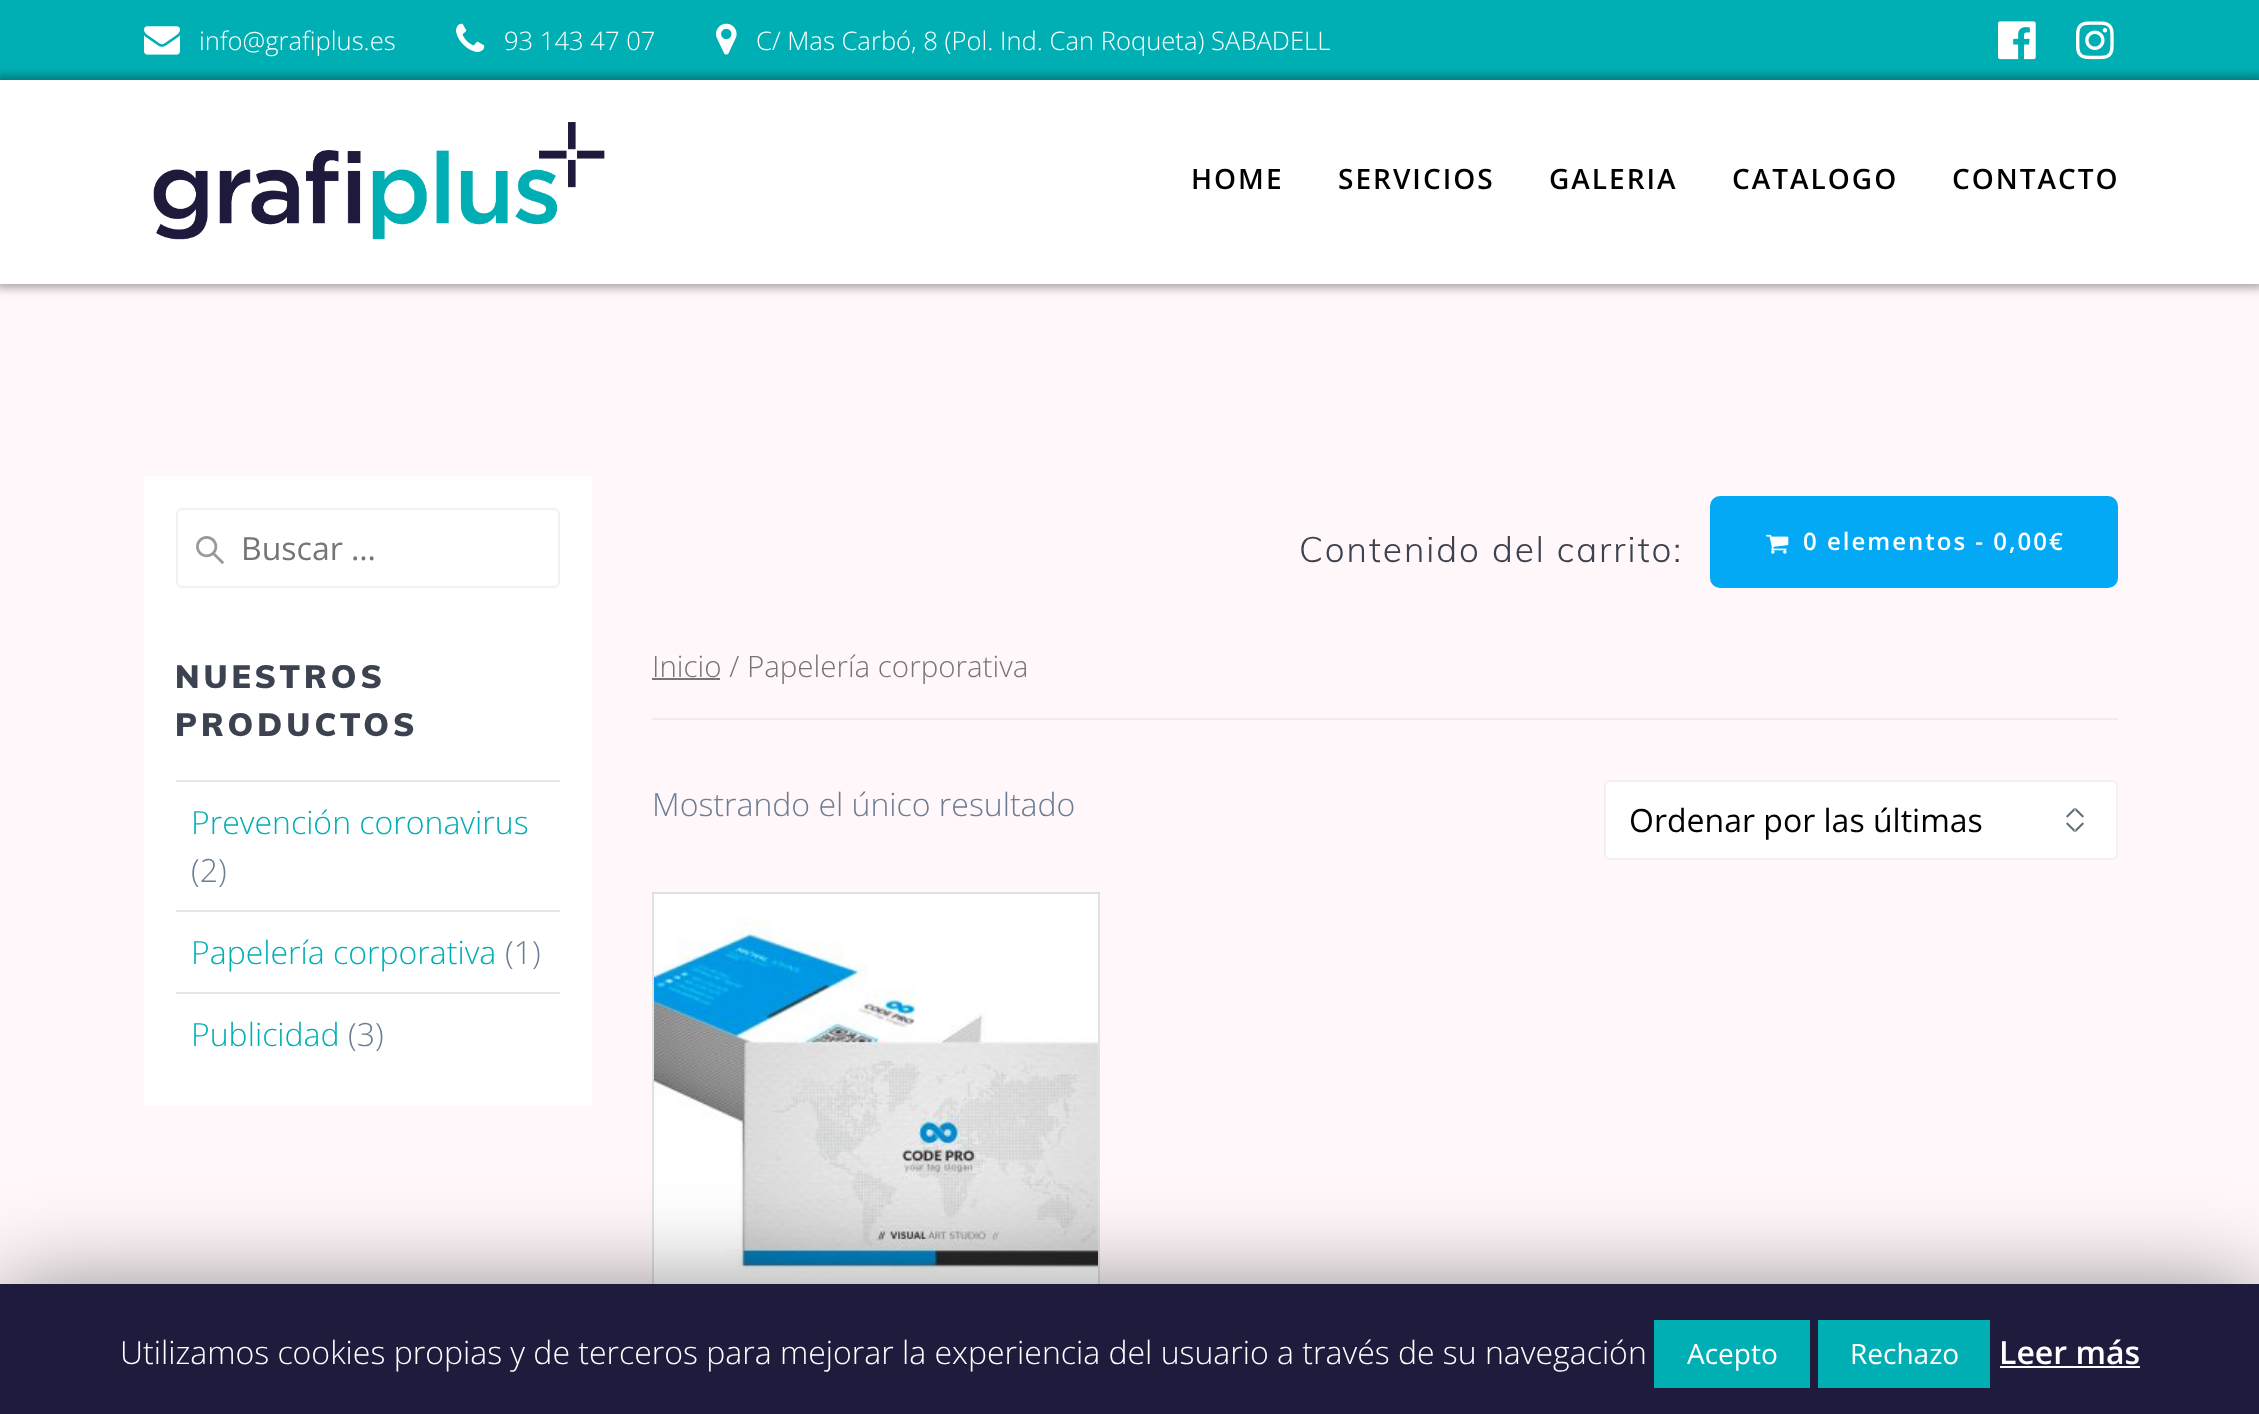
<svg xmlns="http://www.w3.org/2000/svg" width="2259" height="1414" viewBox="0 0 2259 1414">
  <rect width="100%" height="100%" fill="rgb(0,175,180)"/>
  <image x="144" y="26" width="36" height="29" href="pic1.png"/>
  <text x="199" y="50" font-family="Open Sans" font-size="25.6" font-weight="300" fill="rgb(255,255,255)">info@grafiplus.es</text>
  <image x="456" y="23" width="29" height="29" href="pic2.png"/>
  <text x="504" y="50" font-family="Open Sans" font-size="25.6" font-weight="300" fill="rgb(255,255,255)">93 143 47 07</text>
  <image x="716" y="23" width="21" height="32" href="pic3.png"/>
  <text x="756" y="50" font-family="Open Sans" font-size="25.6" font-weight="300" fill="rgb(255,255,255)">C/ Mas Carbó, 8 (Pol. Ind. Can Roqueta) SABADELL</text>
  <image x="1998" y="21" width="38" height="39" href="pic4.png"/>
  <image x="2076" y="21" width="38" height="39" href="pic5.png"/>
  <rect x="0" y="284" width="2259" height="1000" fill="rgb(255,247,249)"/>
  <rect x="-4" y="76" width="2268" height="212" fill="rgba(0,0,0,0.33)" filter="blur(5px)"/>
  <rect x="0" y="80" width="2259" height="204" fill="rgb(255,255,255)"/>
  <image x="153" y="122" width="452" height="118" href="pic6.png"/>
  <g font-family="Open Sans" font-size="28" font-weight="600" letter-spacing="2" fill="rgb(0,0,0)">
    <text x="1191" y="189">HOME</text>
    <text x="1338" y="189">SERVICIOS</text>
    <text x="1549" y="189">GALERIA</text>
    <text x="1732" y="189">CATALOGO</text>
    <text x="1952" y="189">CONTACTO</text>
  </g>
  <rect x="144" y="476" width="448" height="630" fill="rgb(255,255,255)"/>
  <image x="196" y="536" width="28" height="28" href="pic7.png"/>
  <rect x="177" y="509" width="382" height="78" rx="5" fill="none" stroke="rgb(241,241,241)" stroke-width="2"/>
  <text x="241" y="560" font-family="Open Sans" font-size="32" fill="rgb(117,117,117)">Buscar …</text>
  <g font-family="Muli" font-size="32" font-weight="900" letter-spacing="4" fill="rgb(60,66,79)">
    <text>
      <tspan x="175" y="688">NUESTROS</tspan>
      <tspan x="175" y="736">PRODUCTOS</tspan>
    </text>
  </g>
  <rect x="176" y="780" width="384" height="2" fill="rgb(230,230,230)"/>
  <text x="191" y="834" font-family="Open Sans" font-size="32" font-weight="300" fill="rgb(0,175,180)">Prevención coronavirus</text>
  <text x="191" y="882" font-family="Open Sans" font-size="32" font-weight="300" fill="rgb(107,124,147)">(2)</text>
  <rect x="176" y="910" width="384" height="2" fill="rgb(230,230,230)"/>
  <text x="191" y="964" font-family="Open Sans" font-size="32" font-weight="300" fill="rgb(0,175,180)">Papelería corporativa</text>
  <text x="505" y="964" font-family="Open Sans" font-size="32" font-weight="300" fill="rgb(107,124,147)">(1)</text>
  <rect x="176" y="992" width="384" height="2" fill="rgb(230,230,230)"/>
  <text x="191" y="1046" font-family="Open Sans" font-size="32" font-weight="300" fill="rgb(0,175,180)">Publicidad</text>
  <text x="348" y="1046" font-family="Open Sans" font-size="32" font-weight="300" fill="rgb(107,124,147)">(3)</text>
  <rect x="652" y="718" width="1466" height="2" fill="rgb(237,237,237)"/>
  <text x="1299" y="562" font-family="Muli" font-size="35.25" font-weight="300" letter-spacing="2" fill="rgb(60,66,79)">Contenido del carrito:</text>
  <rect x="1712" y="498" width="404" height="88" rx="8" fill="rgb(3,169,244)" stroke="rgb(3,169,244)" stroke-width="4"/>
  <image x="1766" y="534" width="23" height="20" href="pic8.png"/>
  <text x="1803" y="550" font-family="Open Sans" font-size="24" font-weight="600" letter-spacing="2" fill="rgb(255,255,255)">0 elementos - 0,00€</text>
  <rect x="652" y="678" width="68" height="2" fill="rgb(118,118,118)"/>
  <text x="652" y="677" font-family="Open Sans" font-size="29.5" font-weight="300" fill="rgb(117,117,117)">Inicio / Papelería corporativa</text>
  <text x="652" y="816" font-family="Open Sans" font-size="32" font-weight="300" fill="rgb(107,124,147)">Mostrando el único resultado</text>
  <rect x="1604" y="780" width="514" height="80" rx="6" fill="rgb(255,255,255)"/>
  <image x="2066" y="808" width="18" height="24" href="pic9.png"/>
  <rect x="1605" y="781" width="512" height="78" rx="5" fill="none" stroke="rgb(241,241,241)" stroke-width="2"/>
  <text x="1629" y="832" font-family="Open Sans" font-size="32" fill="rgb(0,0,0)">Ordenar por las últimas</text>
  <rect x="654" y="894" width="444" height="390" fill="rgb(255,255,255)"/>
  <rect x="653" y="893" width="446" height="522" fill="none" stroke="rgb(224,225,225)" stroke-width="2"/>
  <image x="654" y="917" width="444" height="357" href="pic10.png"/>
  <rect x="0" y="1294" width="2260" height="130" fill="rgba(0,0,0,0.5)" filter="blur(50px)"/>
  <rect x="0" y="1284" width="2259" height="130" fill="rgb(30,27,60)"/>
  <text x="120" y="1364" font-family="Open Sans" font-size="32" font-weight="300" fill="rgb(255,255,255)">Utilizamos cookies propias y de terceros para mejorar la experiencia del usuario a través de su navegación</text>
  <rect x="1654" y="1320" width="156" height="68" fill="rgb(0,175,180)"/>
  <text x="1687" y="1364" font-family="Open Sans" font-size="28" fill="rgb(255,255,255)">Acepto</text>
  <rect x="1818" y="1320" width="172" height="68" fill="rgb(0,175,180)"/>
  <text x="1850" y="1364" font-family="Open Sans" font-size="28" fill="rgb(255,255,255)">Rechazo</text>
  <text x="1999" y="1364" font-family="Open Sans" font-size="32" font-weight="600" fill="rgb(255,255,255)">Leer más</text>
  <rect x="2000" y="1366" width="140" height="2" fill="rgb(255,255,255)"/>
</svg>
